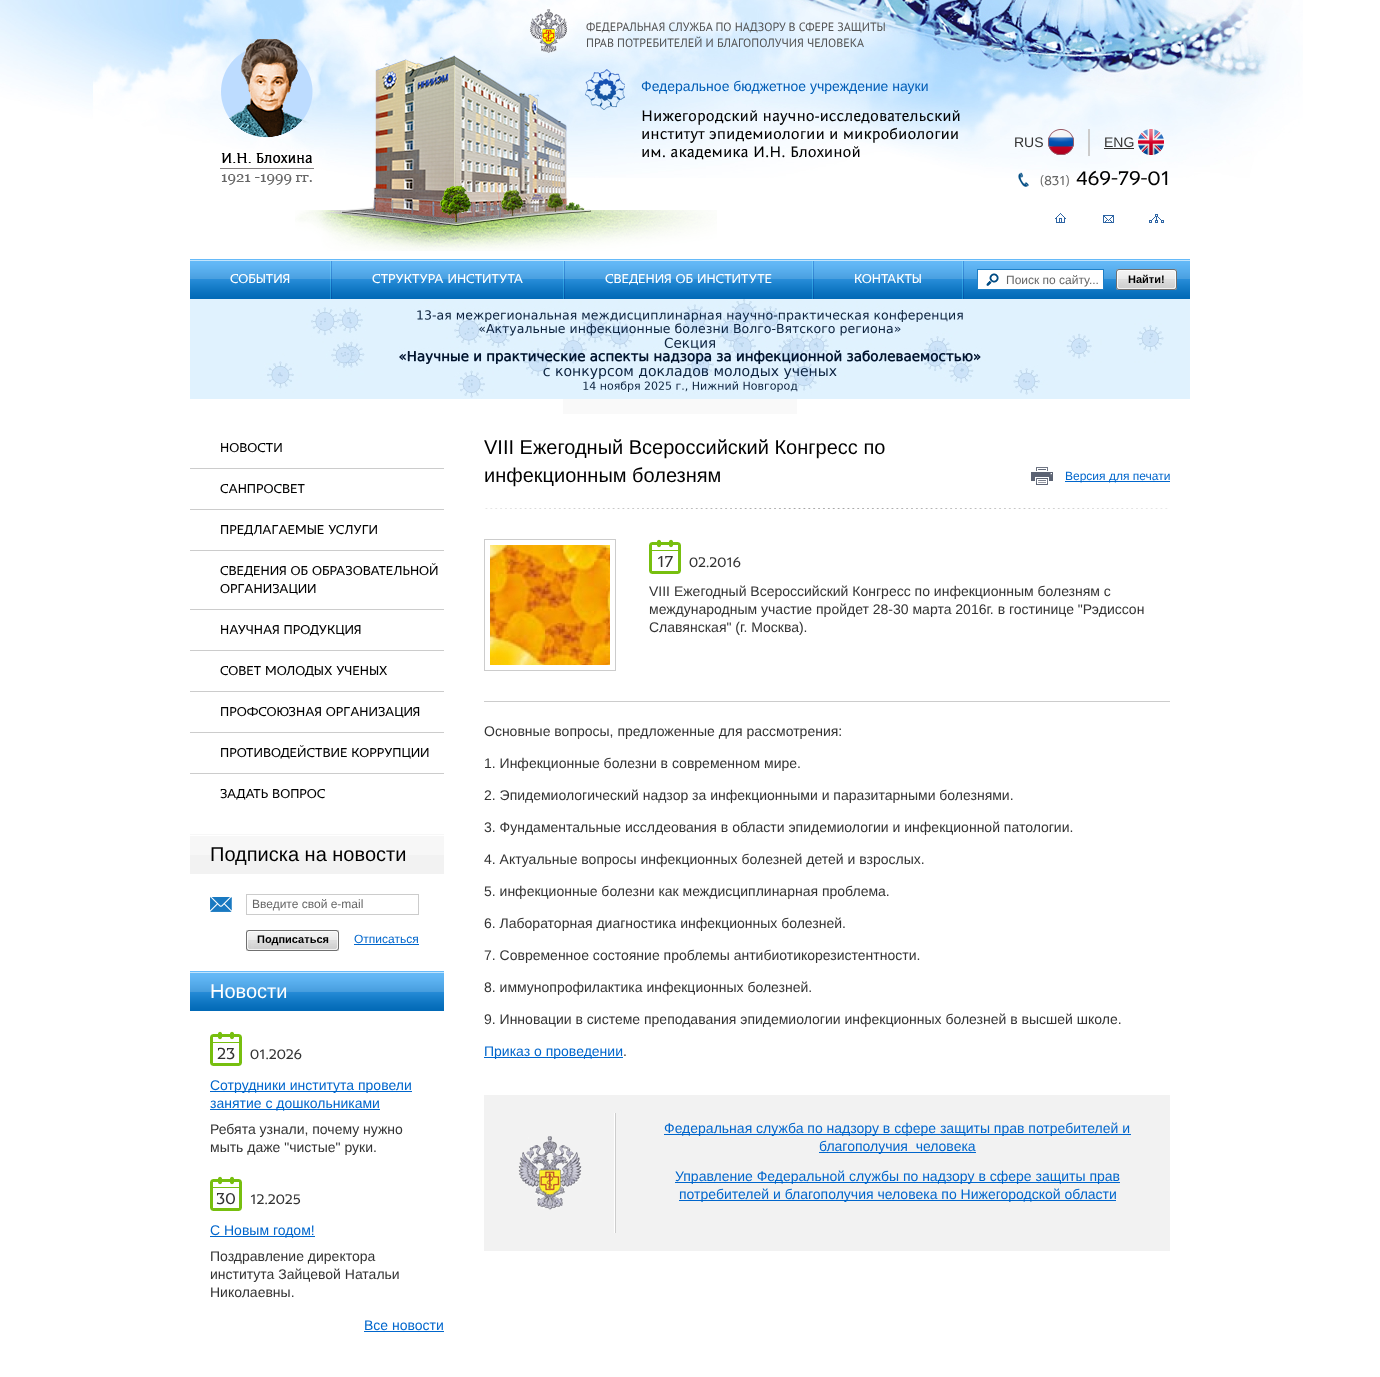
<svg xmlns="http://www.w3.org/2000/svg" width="1380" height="1377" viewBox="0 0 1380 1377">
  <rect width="100%" height="100%" fill="rgb(255,255,255)"/>
  <image x="0" y="0" width="1303" height="178" href="pic1.png"/>
  <image x="295" y="55" width="422" height="196" href="pic2.png"/>
  <image x="530" y="9" width="37" height="44" href="pic3.png"/>
  <g font-family="PT Sans" font-size="12" fill="rgb(81,81,81)">
    <text>
      <tspan x="586" y="31">ФЕДЕРАЛЬНАЯ СЛУЖБА ПО НАДЗОРУ В СФЕРЕ ЗАЩИТЫ</tspan>
      <tspan x="586" y="47">ПРАВ ПОТРЕБИТЕЛЕЙ И БЛАГОПОЛУЧИЯ ЧЕЛОВЕКА</tspan>
    </text>
  </g>
  <image x="220" y="39" width="94" height="146" href="pic4.png"/>
  <image x="585" y="69" width="40" height="41" href="pic5.png"/>
  <text x="641" y="91" font-family="Liberation Sans" font-size="14" fill="rgb(0,93,183)">Федеральное бюджетное учреждение науки</text>
  <g font-family="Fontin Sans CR" font-size="16" fill="rgb(0,0,0)">
    <text>
      <tspan x="641" y="121">Нижегородский научно-исследовательский</tspan>
      <tspan x="641" y="139">институт эпидемиологии и микробиологии</tspan>
      <tspan x="641" y="157">им. академика И.Н. Блохиной</tspan>
    </text>
  </g>
  <image x="1048" y="129" width="26" height="26" href="pic6.png"/>
  <text x="1014" y="147" font-family="Liberation Sans" font-size="14" fill="rgb(51,51,51)">RUS</text>
  <rect x="1088" y="129" width="2" height="27" fill="rgb(204,204,204)"/>
  <image x="1138" y="129" width="26" height="26" href="pic7.png"/>
  <text x="1104" y="147" font-family="Liberation Sans" font-size="14" fill="rgb(51,51,51)">ENG</text>
  <rect x="1104" y="148" width="30" height="1" fill="rgb(51,51,51)"/>
  <image x="1018" y="172" width="11" height="15" href="pic8.png"/>
  <text x="1040" y="185" font-family="'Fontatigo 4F'" font-size="13" fill="rgb(102,102,102)">(831)</text>
  <text x="1076" y="185" font-family="'Fontatigo 4F'" font-size="20" fill="rgb(0,0,0)">469-79-01</text>
  <image x="1055" y="213" width="11" height="10" href="pic9.png"/>
  <image x="1103" y="215" width="11" height="8" href="pic10.png"/>
  <image x="1149" y="214" width="15" height="9" href="pic11.png"/>
  <image x="190" y="259" width="140" height="40" href="pic12.png"/>
  <text x="230" y="283" font-family="'Fontatigo 4F'" font-size="13" fill="rgb(255,255,255)">СОБЫТИЯ</text>
  <image x="330" y="259" width="2" height="40" href="pic13.png"/>
  <image x="332" y="259" width="231" height="40" href="pic14.png"/>
  <text x="372" y="283" font-family="'Fontatigo 4F'" font-size="13" fill="rgb(255,255,255)">СТРУКТУРА ИНСТИТУТА</text>
  <image x="563" y="259" width="2" height="40" href="pic13.png"/>
  <image x="565" y="259" width="247" height="40" href="pic15.png"/>
  <text x="605" y="283" font-family="'Fontatigo 4F'" font-size="13" fill="rgb(255,255,255)">СВЕДЕНИЯ ОБ ИНСТИТУТЕ</text>
  <image x="812" y="259" width="2" height="40" href="pic13.png"/>
  <image x="814" y="259" width="148" height="40" href="pic16.png"/>
  <text x="854" y="283" font-family="'Fontatigo 4F'" font-size="13" fill="rgb(255,255,255)">КОНТАКТЫ</text>
  <image x="962" y="259" width="2" height="40" href="pic13.png"/>
  <image x="964" y="259" width="226" height="40" href="pic17.png"/>
  <rect x="978" y="270" width="125" height="19" fill="rgb(255,255,255)"/>
  <image x="986" y="273" width="13" height="13" href="pic18.png"/>
  <rect x="977.5" y="269.5" width="126" height="20" fill="none" stroke="rgb(29,127,199)"/>
  <text x="1006" y="284" font-family="Liberation Sans" font-size="12" fill="rgb(102,102,102)">Поиск по сайту...</text>
  <image x="1116" y="269" width="61" height="21" href="pic19.png"/>
  <text x="1128" y="283" font-family="Liberation Sans" font-size="11" font-weight="bold" fill="rgb(0,0,0)">Найти!</text>
  <image x="190" y="299" width="1000" height="100" href="pic20.png"/>
  <rect x="563" y="399" width="234" height="15" fill="rgb(249,249,249)"/>
  <text x="220" y="452" font-family="'Fontatigo 4F'" font-size="13" fill="rgb(0,0,0)">НОВОСТИ</text>
  <rect x="190" y="468" width="254" height="1" fill="rgb(204,204,204)"/>
  <text x="220" y="493" font-family="'Fontatigo 4F'" font-size="13" fill="rgb(0,0,0)">САНПРОСВЕТ</text>
  <rect x="190" y="509" width="254" height="1" fill="rgb(204,204,204)"/>
  <text x="220" y="534" font-family="'Fontatigo 4F'" font-size="13" fill="rgb(0,0,0)">ПРЕДЛАГАЕМЫЕ УСЛУГИ</text>
  <rect x="190" y="550" width="254" height="1" fill="rgb(204,204,204)"/>
  <g font-family="'Fontatigo 4F'" font-size="13" fill="rgb(0,0,0)">
    <text>
      <tspan x="220" y="575">СВЕДЕНИЯ ОБ ОБРАЗОВАТЕЛЬНОЙ</tspan>
      <tspan x="220" y="593">ОРГАНИЗАЦИИ</tspan>
    </text>
  </g>
  <rect x="190" y="609" width="254" height="1" fill="rgb(204,204,204)"/>
  <text x="220" y="634" font-family="'Fontatigo 4F'" font-size="13" fill="rgb(0,0,0)">НАУЧНАЯ ПРОДУКЦИЯ</text>
  <rect x="190" y="650" width="254" height="1" fill="rgb(204,204,204)"/>
  <text x="220" y="675" font-family="'Fontatigo 4F'" font-size="13" fill="rgb(0,0,0)">СОВЕТ МОЛОДЫХ УЧЕНЫХ</text>
  <rect x="190" y="691" width="254" height="1" fill="rgb(204,204,204)"/>
  <text x="220" y="716" font-family="'Fontatigo 4F'" font-size="13" fill="rgb(0,0,0)">ПРОФСОЮЗНАЯ ОРГАНИЗАЦИЯ</text>
  <rect x="190" y="732" width="254" height="1" fill="rgb(204,204,204)"/>
  <text x="220" y="757" font-family="'Fontatigo 4F'" font-size="13" fill="rgb(0,0,0)">ПРОТИВОДЕЙСТВИЕ КОРРУПЦИИ</text>
  <rect x="190" y="773" width="254" height="1" fill="rgb(204,204,204)"/>
  <text x="220" y="798" font-family="'Fontatigo 4F'" font-size="13" fill="rgb(0,0,0)">ЗАДАТЬ ВОПРОС</text>
  <image x="190" y="834" width="254" height="40" href="pic21.png"/>
  <text x="210" y="861" font-family="Liberation Sans" font-size="20" fill="rgb(0,0,0)">Подписка на новости</text>
  <image x="210" y="897" width="22" height="15" href="pic22.png"/>
  <rect x="246.5" y="894.5" width="172" height="20" fill="none" stroke="rgb(204,204,204)"/>
  <text x="252" y="908" font-family="Liberation Sans" font-size="12" fill="rgb(102,102,102)">Введите свой e-mail</text>
  <image x="246" y="930" width="93" height="21" href="pic23.png"/>
  <text x="257" y="943" font-family="Liberation Sans" font-size="11" font-weight="bold" fill="rgb(0,0,0)">Подписаться</text>
  <text x="354" y="943" font-family="Liberation Sans" font-size="12" fill="rgb(0,102,204)">Отписаться</text>
  <rect x="354" y="944" width="65" height="1" fill="rgb(0,102,204)"/>
  <image x="190" y="971" width="254" height="40" href="pic24.png"/>
  <text x="210" y="998" font-family="Liberation Sans" font-size="20" fill="rgb(255,255,255)">Новости</text>
  <image x="210" y="1031" width="32" height="35" href="pic25.png"/>
  <text x="217" y="1059" font-family="'Fontatigo 4F'" font-size="16" fill="rgb(51,51,51)">23</text>
  <text x="250" y="1059" font-family="'Fontatigo 4F'" font-size="14" fill="rgb(51,51,51)">01.2026</text>
  <rect x="210" y="1091" width="202" height="1" fill="rgb(0,102,204)"/>
  <text x="210" y="1090" font-family="Liberation Sans" font-size="14" fill="rgb(0,102,204)">Сотрудники института провели</text>
  <rect x="210" y="1109" width="170" height="1" fill="rgb(0,102,204)"/>
  <text x="210" y="1108" font-family="Liberation Sans" font-size="14" fill="rgb(0,102,204)">занятие с дошкольниками</text>
  <g font-family="Liberation Sans" font-size="14" fill="rgb(51,51,51)">
    <text>
      <tspan x="210" y="1134">Ребята узнали, почему нужно</tspan>
      <tspan x="210" y="1152">мыть даже "чистые" руки.</tspan>
    </text>
  </g>
  <image x="210" y="1176" width="32" height="35" href="pic25.png"/>
  <text x="216" y="1204" font-family="'Fontatigo 4F'" font-size="16" fill="rgb(51,51,51)">30</text>
  <text x="250" y="1204" font-family="'Fontatigo 4F'" font-size="14" fill="rgb(51,51,51)">12.2025</text>
  <rect x="210" y="1236" width="105" height="1" fill="rgb(0,102,204)"/>
  <text x="210" y="1235" font-family="Liberation Sans" font-size="14" fill="rgb(0,102,204)">С Новым годом!</text>
  <g font-family="Liberation Sans" font-size="14" fill="rgb(51,51,51)">
    <text>
      <tspan x="210" y="1261">Поздравление директора</tspan>
      <tspan x="210" y="1279">института Зайцевой Натальи</tspan>
      <tspan x="210" y="1297">Николаевны.</tspan>
    </text>
  </g>
  <text x="364" y="1330" font-family="Liberation Sans" font-size="14" fill="rgb(0,102,204)">Все новости</text>
  <rect x="364" y="1331" width="80" height="1" fill="rgb(0,102,204)"/>
  <image x="485" y="508" width="683" height="1" href="pic26.png"/>
  <g font-family="Liberation Sans" font-size="20" fill="rgb(0,0,0)">
    <text>
      <tspan x="484" y="454">VIII Ежегодный Всероссийский Конгресс по</tspan>
      <tspan x="484" y="482">инфекционным болезням</tspan>
    </text>
  </g>
  <image x="1031" y="467" width="22" height="18" href="pic27.png"/>
  <rect x="1065" y="481" width="105" height="1" fill="rgb(0,102,204)"/>
  <text x="1065" y="480" font-family="Liberation Sans" font-size="12" fill="rgb(0,102,204)">Версия для печати</text>
  <rect x="484.5" y="539.5" width="131" height="131" fill="none" stroke="rgb(204,204,204)"/>
  <image x="490" y="545" width="120" height="120" href="pic28.png"/>
  <image x="649" y="539" width="32" height="35" href="pic25.png"/>
  <text x="657" y="567" font-family="'Fontatigo 4F'" font-size="16" fill="rgb(51,51,51)">17</text>
  <text x="689" y="567" font-family="'Fontatigo 4F'" font-size="14" fill="rgb(51,51,51)">02.2016</text>
  <g font-family="Liberation Sans" font-size="14" fill="rgb(51,51,51)">
    <text>
      <tspan x="649" y="596">VIII Ежегодный Всероссийский Конгресс по инфекционным болезням с</tspan>
      <tspan x="649" y="614">международным участие пройдет 28-30 марта 2016г. в гостинице "Рэдиссон</tspan>
      <tspan x="649" y="632">Славянская" (г. Москва).</tspan>
    </text>
  </g>
  <rect x="484" y="701" width="686" height="1" fill="rgb(204,204,204)"/>
  <g font-family="Liberation Sans" font-size="14" fill="rgb(51,51,51)">
    <text x="484" y="736">Основные вопросы, предложенные для рассмотрения:</text>
    <text x="484" y="768">1. Инфекционные болезни в современном мире.</text>
    <text x="484" y="800">2. Эпидемиологический надзор за инфекционными и паразитарными болезнями.</text>
    <text x="484" y="832">3. Фундаментальные исслдеования в области эпидемиологии и инфекционной патологии.</text>
    <text x="484" y="864">4. Актуальные вопросы инфекционных болезней детей и взрослых.</text>
    <text x="484" y="896">5. инфекционные болезни как междисциплинарная проблема.</text>
    <text x="484" y="928">6. Лабораторная диагностика инфекционных болезней.</text>
    <text x="484" y="960">7. Современное состояние проблемы антибиотикорезистентности.</text>
    <text x="484" y="992">8. иммунопрофилактика инфекционных болезней.</text>
    <text x="484" y="1024">9. Инновации в системе преподавания эпидемиологии инфекционных болезней в высшей школе.</text>
  </g>
  <rect x="484" y="1057" width="139" height="1" fill="rgb(0,102,204)"/>
  <text x="484" y="1056" font-family="Liberation Sans" font-size="14" fill="rgb(0,102,204)">Приказ о проведении</text>
  <text x="623" y="1056" font-family="Liberation Sans" font-size="14" fill="rgb(51,51,51)">.</text>
  <rect x="484" y="1095" width="686" height="156" fill="rgb(242,242,242)"/>
  <image x="518" y="1136" width="64" height="74" href="pic29.png"/>
  <image x="614" y="1113" width="2" height="120" href="pic30.png"/>
  <rect x="664" y="1134" width="467" height="1" fill="rgb(0,102,204)"/>
  <text x="664" y="1133" font-family="Liberation Sans" font-size="14" fill="rgb(0,102,204)">Федеральная служба по надзору в сфере защиты прав потребителей и</text>
  <rect x="819" y="1152" width="157" height="1" fill="rgb(0,102,204)"/>
  <text x="819" y="1151" font-family="Liberation Sans" font-size="14" fill="rgb(0,102,204)" xml:space="preserve">благополучия  человека</text>
  <rect x="675" y="1182" width="445" height="1" fill="rgb(0,102,204)"/>
  <text x="675" y="1181" font-family="Liberation Sans" font-size="14" fill="rgb(0,102,204)">Управление Федеральной службы по надзору в сфере защиты прав</text>
  <rect x="679" y="1200" width="437" height="1" fill="rgb(0,102,204)"/>
  <text x="679" y="1199" font-family="Liberation Sans" font-size="14" fill="rgb(0,102,204)">потребителей и благополучия человека по Нижегородской области</text>
</svg>
